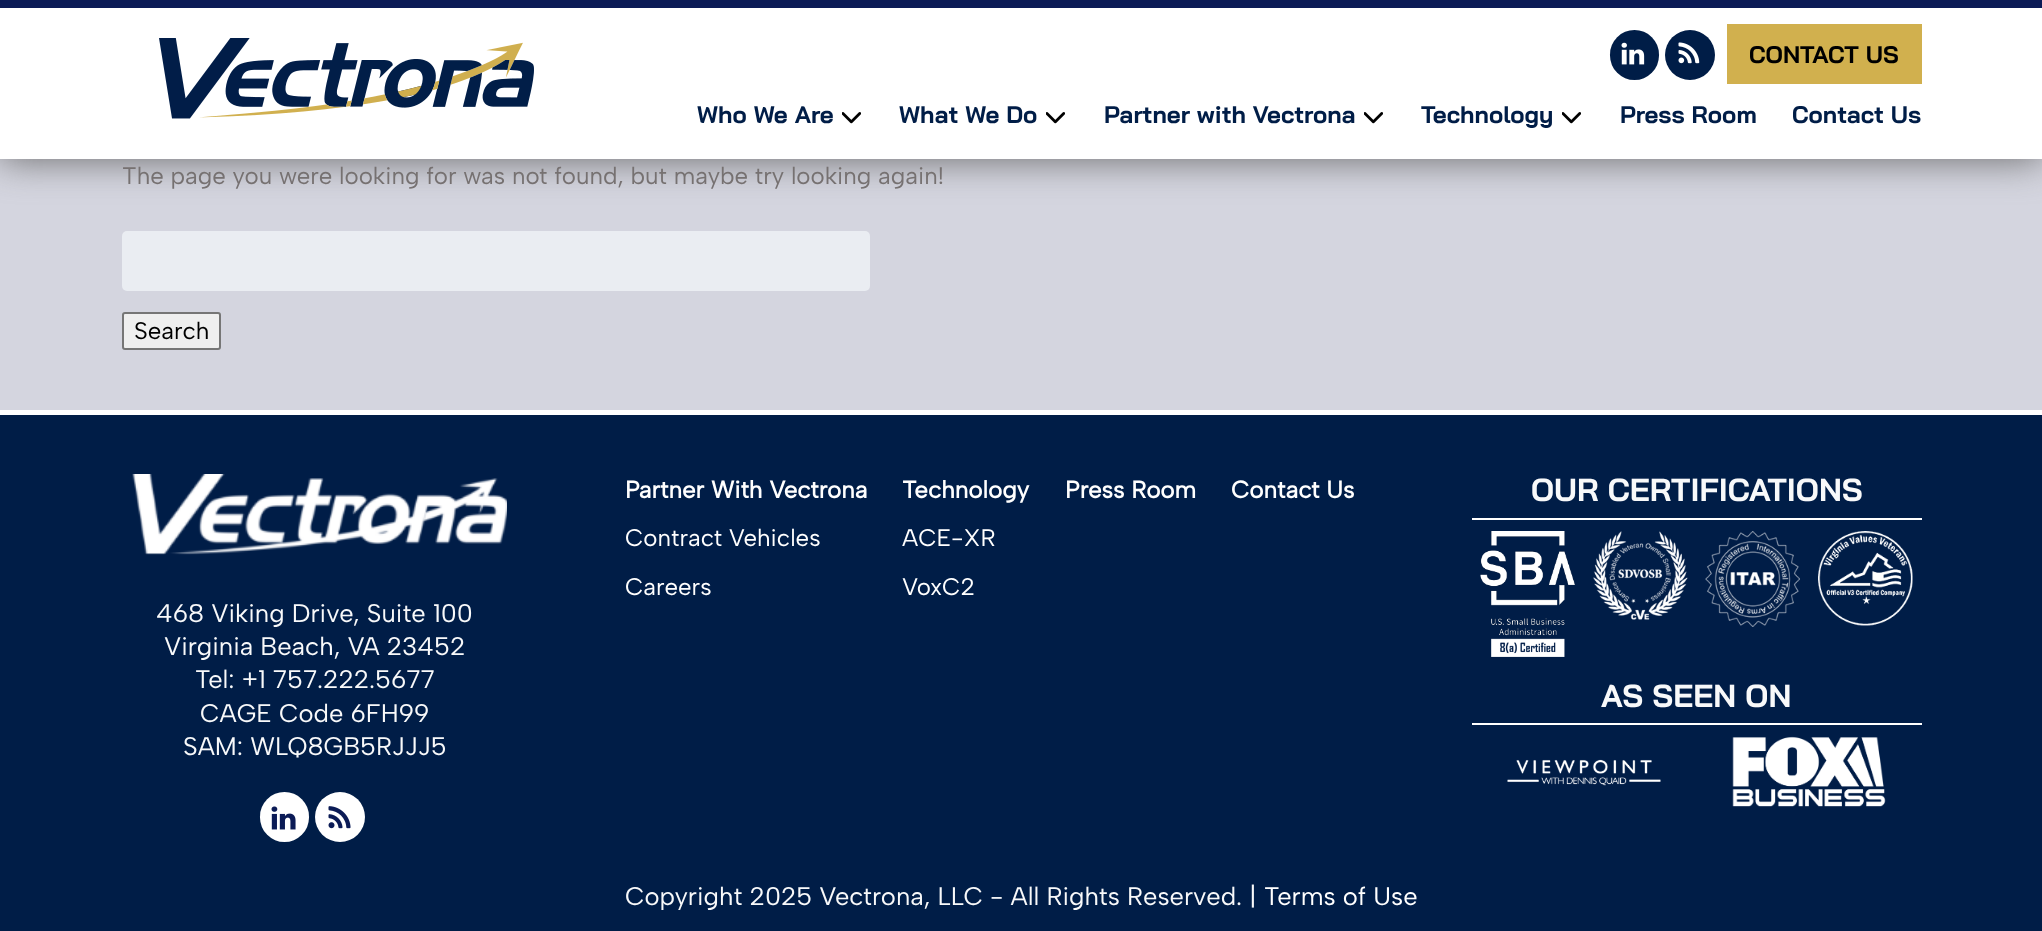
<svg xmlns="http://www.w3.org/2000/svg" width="2042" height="931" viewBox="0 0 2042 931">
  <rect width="100%" height="100%" fill="rgb(212,213,223)"/>
  <rect x="0" y="0" width="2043" height="159" fill="rgb(102,102,102)" filter="blur(19px)"/>
  <rect x="0" y="8" width="2042" height="151" fill="rgb(255,255,255)"/>
  <rect x="0" y="0" width="2042" height="8" fill="rgb(11,27,86)"/>
  <image x="159" y="38" width="375" height="81" href="pic1.png"/>
  <rect x="1610" y="30" width="49" height="50" rx="24.5" fill="rgb(0,29,71)"/>
  <image x="1621" y="42" width="24" height="23" href="pic2.png"/>
  <circle cx="1690" cy="55" r="25" fill="rgb(0,29,71)"/>
  <image x="1678" y="42" width="22" height="22" href="pic3.png"/>
  <rect x="1727" y="24" width="195" height="60" fill="rgb(209,176,78)"/>
  <text x="1749" y="63" font-family="Bai Jamjuree" font-size="24" font-weight="bold" fill="rgb(0,0,0)">CONTACT US</text>
  <text x="697" y="123" font-family="Bai Jamjuree" font-size="24" font-weight="bold" fill="rgb(0,29,71)">Who We Are</text>
  <image x="842" y="112" width="19" height="12" href="pic4.png"/>
  <text x="899" y="123" font-family="Bai Jamjuree" font-size="24" font-weight="bold" fill="rgb(0,29,71)">What We Do</text>
  <image x="1046" y="112" width="19" height="12" href="pic4.png"/>
  <text x="1104" y="123" font-family="Bai Jamjuree" font-size="24" font-weight="bold" fill="rgb(0,29,71)">Partner with Vectrona</text>
  <image x="1364" y="112" width="19" height="12" href="pic4.png"/>
  <text x="1421" y="123" font-family="Bai Jamjuree" font-size="24" font-weight="bold" fill="rgb(0,29,71)">Technology</text>
  <image x="1562" y="112" width="19" height="12" href="pic4.png"/>
  <g font-family="Bai Jamjuree" font-size="24" font-weight="bold" fill="rgb(0,29,71)">
    <text x="1620" y="123">Press Room</text>
    <text x="1792" y="123">Contact Us</text>
  </g>
  <text x="122" y="184" font-family="Albert Sans" font-size="24" fill="rgb(118,113,113)">The page you were looking for was not found, but maybe try looking again!</text>
  <rect x="122" y="231" width="748" height="60" rx="5" fill="rgb(234,237,242)"/>
  <rect x="123" y="313" width="97" height="36" rx="2" fill="rgb(239,239,239)" stroke="rgb(118,118,118)" stroke-width="2"/>
  <text x="134" y="339" font-family="Albert Sans" font-size="24" fill="rgb(0,0,0)">Search</text>
  <rect x="0" y="415" width="2042" height="516" fill="rgb(0,29,71)"/>
  <rect x="0" y="410" width="2042" height="5" fill="rgb(255,255,255)"/>
  <text x="625" y="498" font-family="Albert Sans" font-size="24" font-weight="bold" fill="rgb(255,255,255)">Partner With Vectrona</text>
  <g font-family="Albert Sans" font-size="24" fill="rgb(255,255,255)">
    <text x="625" y="546">Contract Vehicles</text>
    <text x="625" y="595">Careers</text>
  </g>
  <text x="902" y="498" font-family="Albert Sans" font-size="24" font-weight="bold" fill="rgb(255,255,255)">Technology</text>
  <g font-family="Albert Sans" font-size="24" fill="rgb(255,255,255)">
    <text x="902" y="546">ACE-XR</text>
    <text x="902" y="595">VoxC2</text>
  </g>
  <g font-family="Albert Sans" font-size="24" font-weight="bold" fill="rgb(255,255,255)">
    <text x="1065" y="498">Press Room</text>
    <text x="1231" y="498">Contact Us</text>
  </g>
  <rect x="1472" y="518" width="450" height="2" fill="rgb(255,255,255)"/>
  <text x="1531" y="501" font-family="Bai Jamjuree" font-size="31.9" font-weight="bold" fill="rgb(248,249,250)">OUR CERTIFICATIONS</text>
  <image x="1480" y="531" width="95" height="126" href="pic5.png"/>
  <image x="1593" y="531" width="95" height="89" href="pic6.png"/>
  <image x="1705" y="531" width="95" height="96" href="pic7.png"/>
  <image x="1818" y="531" width="95" height="95" href="pic8.png"/>
  <rect x="1472" y="723" width="450" height="2" fill="rgb(255,255,255)"/>
  <text x="1601" y="707" font-family="Bai Jamjuree" font-size="31.9" font-weight="bold" fill="rgb(248,249,250)">AS SEEN ON</text>
  <image x="1507" y="759" width="154" height="27" href="pic9.png"/>
  <image x="1732" y="736" width="154" height="71" href="pic10.png"/>
  <image x="132" y="474" width="375" height="81" href="pic11.png"/>
  <g font-family="Albert Sans" font-size="25.5" fill="rgb(248,249,250)">
    <text x="156" y="622">468 Viking Drive, Suite 100</text>
    <text x="164" y="655">Virginia Beach, VA 23452</text>
    <text x="195" y="688">Tel: +1 757.222.5677</text>
    <text x="200" y="722">CAGE Code 6FH99</text>
    <text x="183" y="755">SAM: WLQ8GB5RJJJ5</text>
  </g>
  <rect x="260" y="792" width="49" height="50" rx="24.5" fill="rgb(255,255,255)"/>
  <image x="271" y="806" width="25" height="24" href="pic12.png"/>
  <circle cx="340" cy="817" r="25" fill="rgb(255,255,255)"/>
  <image x="328" y="806" width="23" height="23" href="pic13.png"/>
  <text x="625" y="905" font-family="Albert Sans" font-size="25.5" fill="rgb(248,249,250)">Copyright 2025 Vectrona, LLC - All Rights Reserved. |</text>
  <text x="1264" y="905" font-family="Albert Sans" font-size="25.5" fill="rgb(255,255,255)">Terms of Use</text>
</svg>
